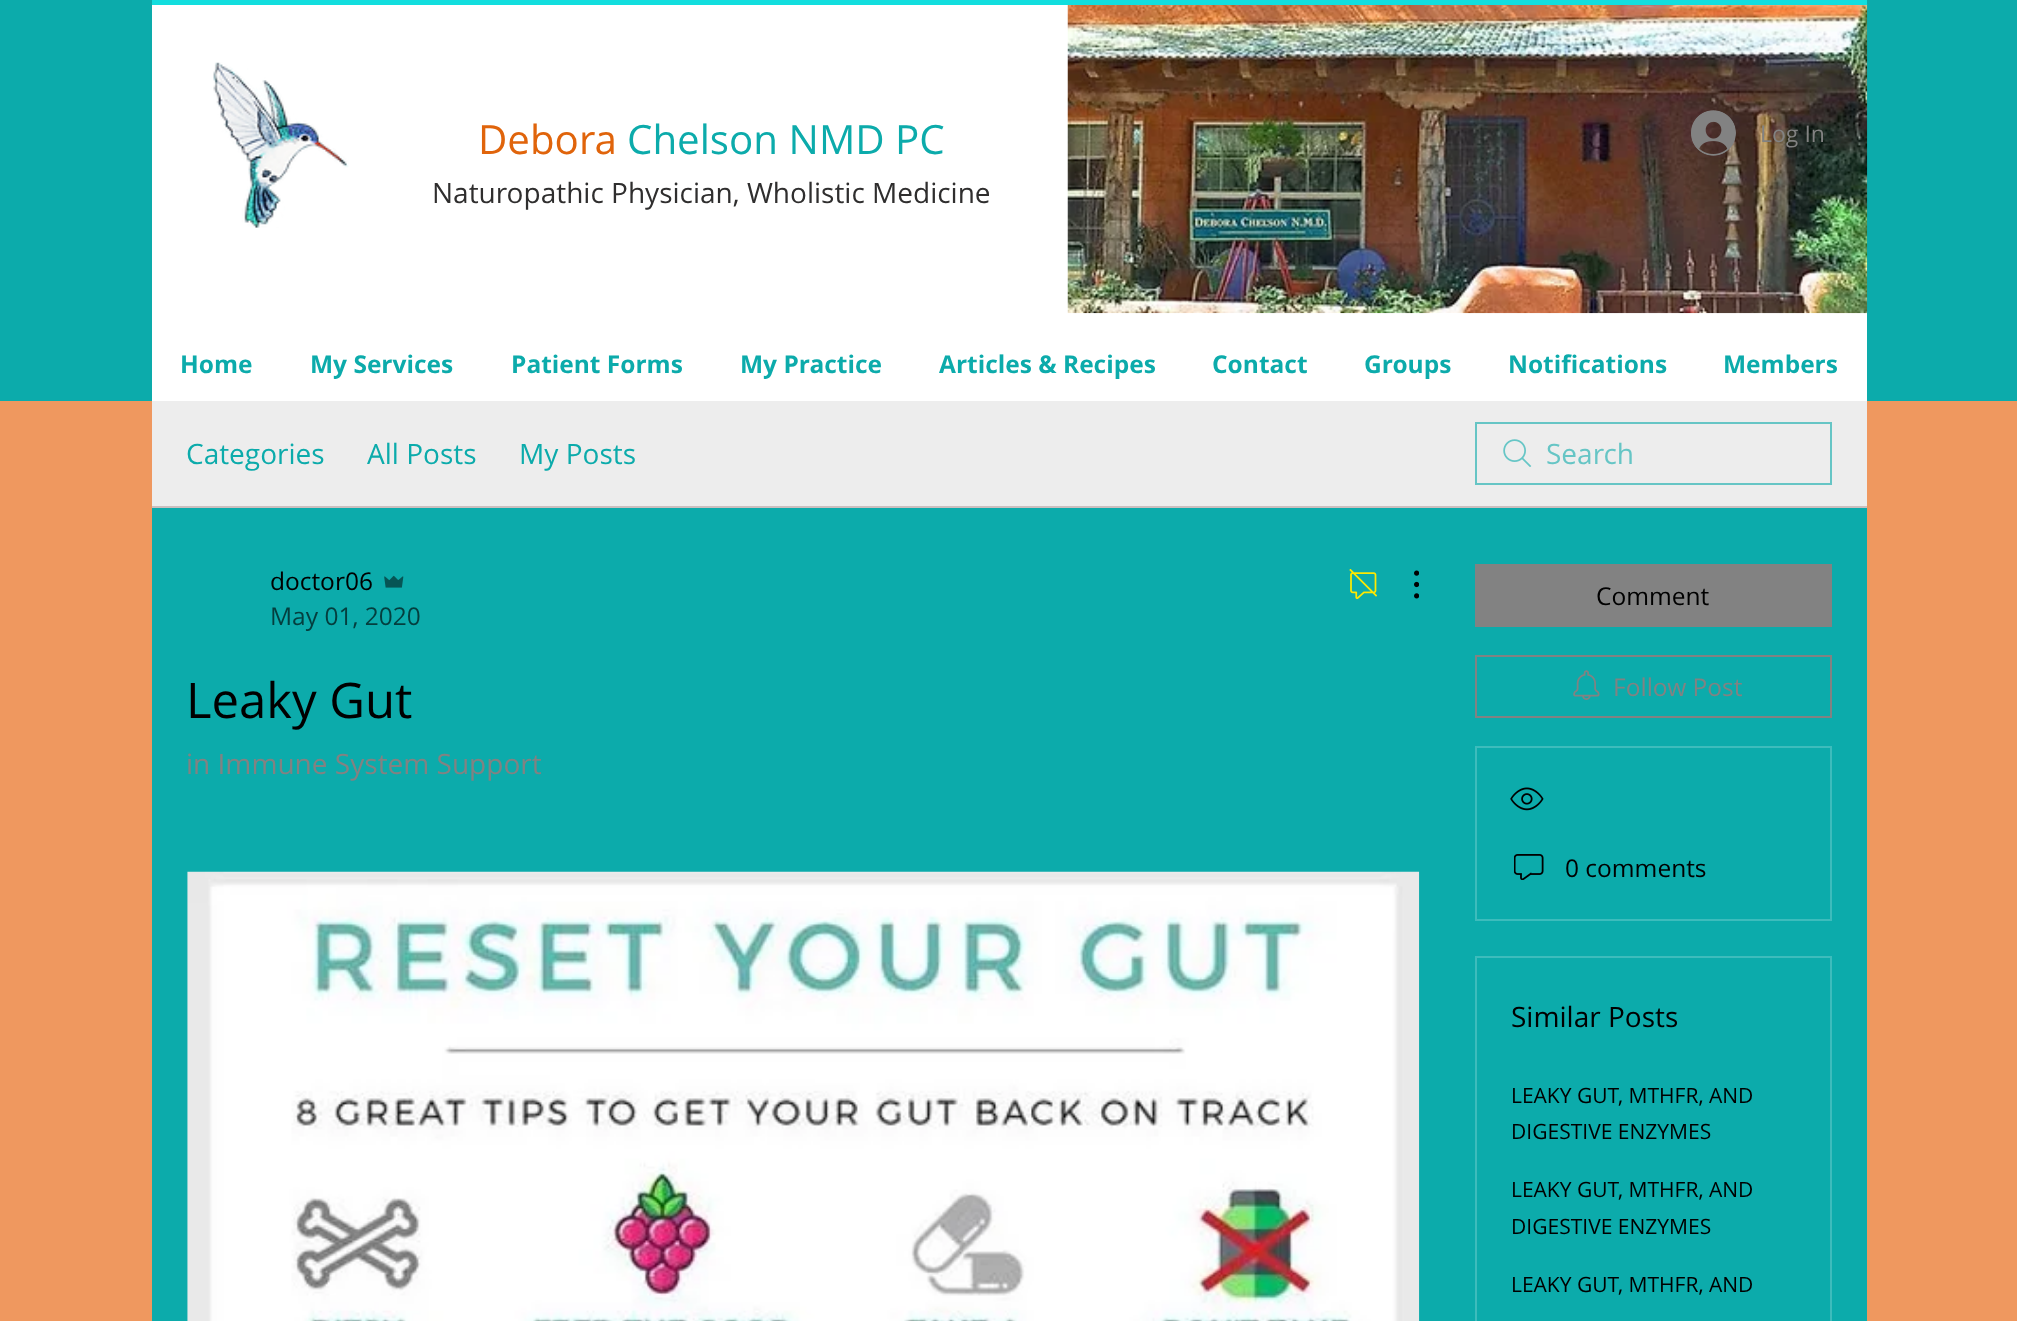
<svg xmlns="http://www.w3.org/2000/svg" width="2017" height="1321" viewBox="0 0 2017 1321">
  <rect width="100%" height="100%" fill="rgb(239,152,95)"/>
  <rect x="0" y="0" width="2017" height="401" fill="rgb(12,171,171)"/>
  <rect x="152" y="5" width="1715" height="396" fill="rgb(255,255,255)"/>
  <image x="1067" y="4" width="801" height="310" href="pic2.png"/>
  <rect x="152" y="0" width="1715" height="5" fill="rgb(18,222,222)"/>
  <image x="213" y="62" width="136" height="166" href="pic1.png"/>
  <text x="478" y="154" font-family="Open Sans" font-size="40.25" fill="rgb(224,100,11)">Debora</text>
  <text x="627" y="154" font-family="Open Sans" font-size="40.25" fill="rgb(12,171,171)">Chelson NMD PC</text>
  <text x="432" y="203" font-family="Open Sans" font-size="28" fill="rgb(47,46,46)">Naturopathic Physician, Wholistic Medicine</text>
  <image x="1691" y="110" width="45" height="46" href="pic3.png"/>
  <text x="1760" y="142" font-family="Open Sans" font-size="23" fill="rgb(130,130,130)">Log In</text>
  <g font-family="Open Sans" font-size="24.5" font-weight="bold" fill="rgb(12,171,171)">
    <text x="180" y="373">Home</text>
    <text x="310" y="373">My Services</text>
    <text x="511" y="373">Patient Forms</text>
    <text x="740" y="373">My Practice</text>
    <text x="939" y="373">Articles &amp; Recipes</text>
    <text x="1212" y="373">Contact</text>
    <text x="1364" y="373">Groups</text>
    <text x="1508" y="373">Notifications</text>
    <text x="1723" y="373">Members</text>
  </g>
  <rect x="152" y="401" width="1715" height="105" fill="rgb(237,237,237)"/>
  <rect x="152" y="506" width="1715" height="2" fill="rgb(203,191,191)"/>
  <g font-family="Open Sans" font-size="28" fill="rgb(12,171,171)">
    <text x="186" y="464">Categories</text>
    <text x="367" y="464">All Posts</text>
    <text x="519" y="464">My Posts</text>
  </g>
  <image x="1503" y="439" width="29" height="28" href="pic4.png"/>
  <rect x="1476" y="423" width="355" height="61" fill="none" stroke="rgb(102,197,197)" stroke-width="2"/>
  <text x="1546" y="464" font-family="Open Sans" font-size="28" fill="rgb(102,197,197)">Search</text>
  <rect x="152" y="508" width="1715" height="813" fill="rgb(12,171,171)"/>
  <text x="270" y="590" font-family="Open Sans" font-size="24.5" fill="rgb(0,0,0)">doctor06</text>
  <image x="384" y="575" width="20" height="13" href="pic5.png"/>
  <text x="270" y="625" font-family="Open Sans" font-size="24.5" fill="rgb(4,62,62)">May 01, 2020</text>
  <image x="1349" y="569" width="28" height="31" href="pic6.png"/>
  <image x="1414" y="570" width="5" height="29" href="pic7.png"/>
  <text x="186" y="718" font-family="Open Sans" font-size="49" fill="rgb(0,0,0)">Leaky Gut</text>
  <text x="186" y="774" font-family="Open Sans" font-size="28" fill="rgb(130,130,130)">in Immune System Support</text>
  <image x="187" y="871" width="1233" height="450" href="pic8.png"/>
  <rect x="1475" y="564" width="357" height="63" fill="rgb(130,130,130)"/>
  <text x="1596" y="605" font-family="Open Sans" font-size="24.5" fill="rgb(0,0,0)">Comment</text>
  <rect x="1476" y="656" width="355" height="61" fill="none" stroke="rgb(130,130,130)" stroke-width="2"/>
  <image x="1573" y="670" width="27" height="30" href="pic9.png"/>
  <text x="1613" y="696" font-family="Open Sans" font-size="24.5" fill="rgb(130,130,130)">Follow Post</text>
  <rect x="1476" y="747" width="355" height="173" fill="none" stroke="rgb(61,188,188)" stroke-width="2"/>
  <image x="1510" y="787" width="34" height="24" href="pic10.png"/>
  <image x="1514" y="854" width="30" height="26" href="pic11.png"/>
  <text x="1565" y="877" font-family="Open Sans" font-size="24.5" fill="rgb(0,0,0)">0 comments</text>
  <rect x="1476" y="957" width="355" height="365" fill="none" stroke="rgb(61,188,188)" stroke-width="2"/>
  <text x="1511" y="1027" font-family="Open Sans" font-size="28" fill="rgb(0,0,0)">Similar Posts</text>
  <g font-family="Open Sans" font-size="21" fill="rgb(0,0,0)">
    <text>
      <tspan x="1511" y="1103">LEAKY GUT, MTHFR, AND</tspan>
      <tspan x="1511" y="1139">DIGESTIVE ENZYMES</tspan>
    </text>
    <text>
      <tspan x="1511" y="1197">LEAKY GUT, MTHFR, AND</tspan>
      <tspan x="1511" y="1234">DIGESTIVE ENZYMES</tspan>
    </text>
    <text x="1511" y="1292">LEAKY GUT, MTHFR, AND</text>
  </g>
</svg>
